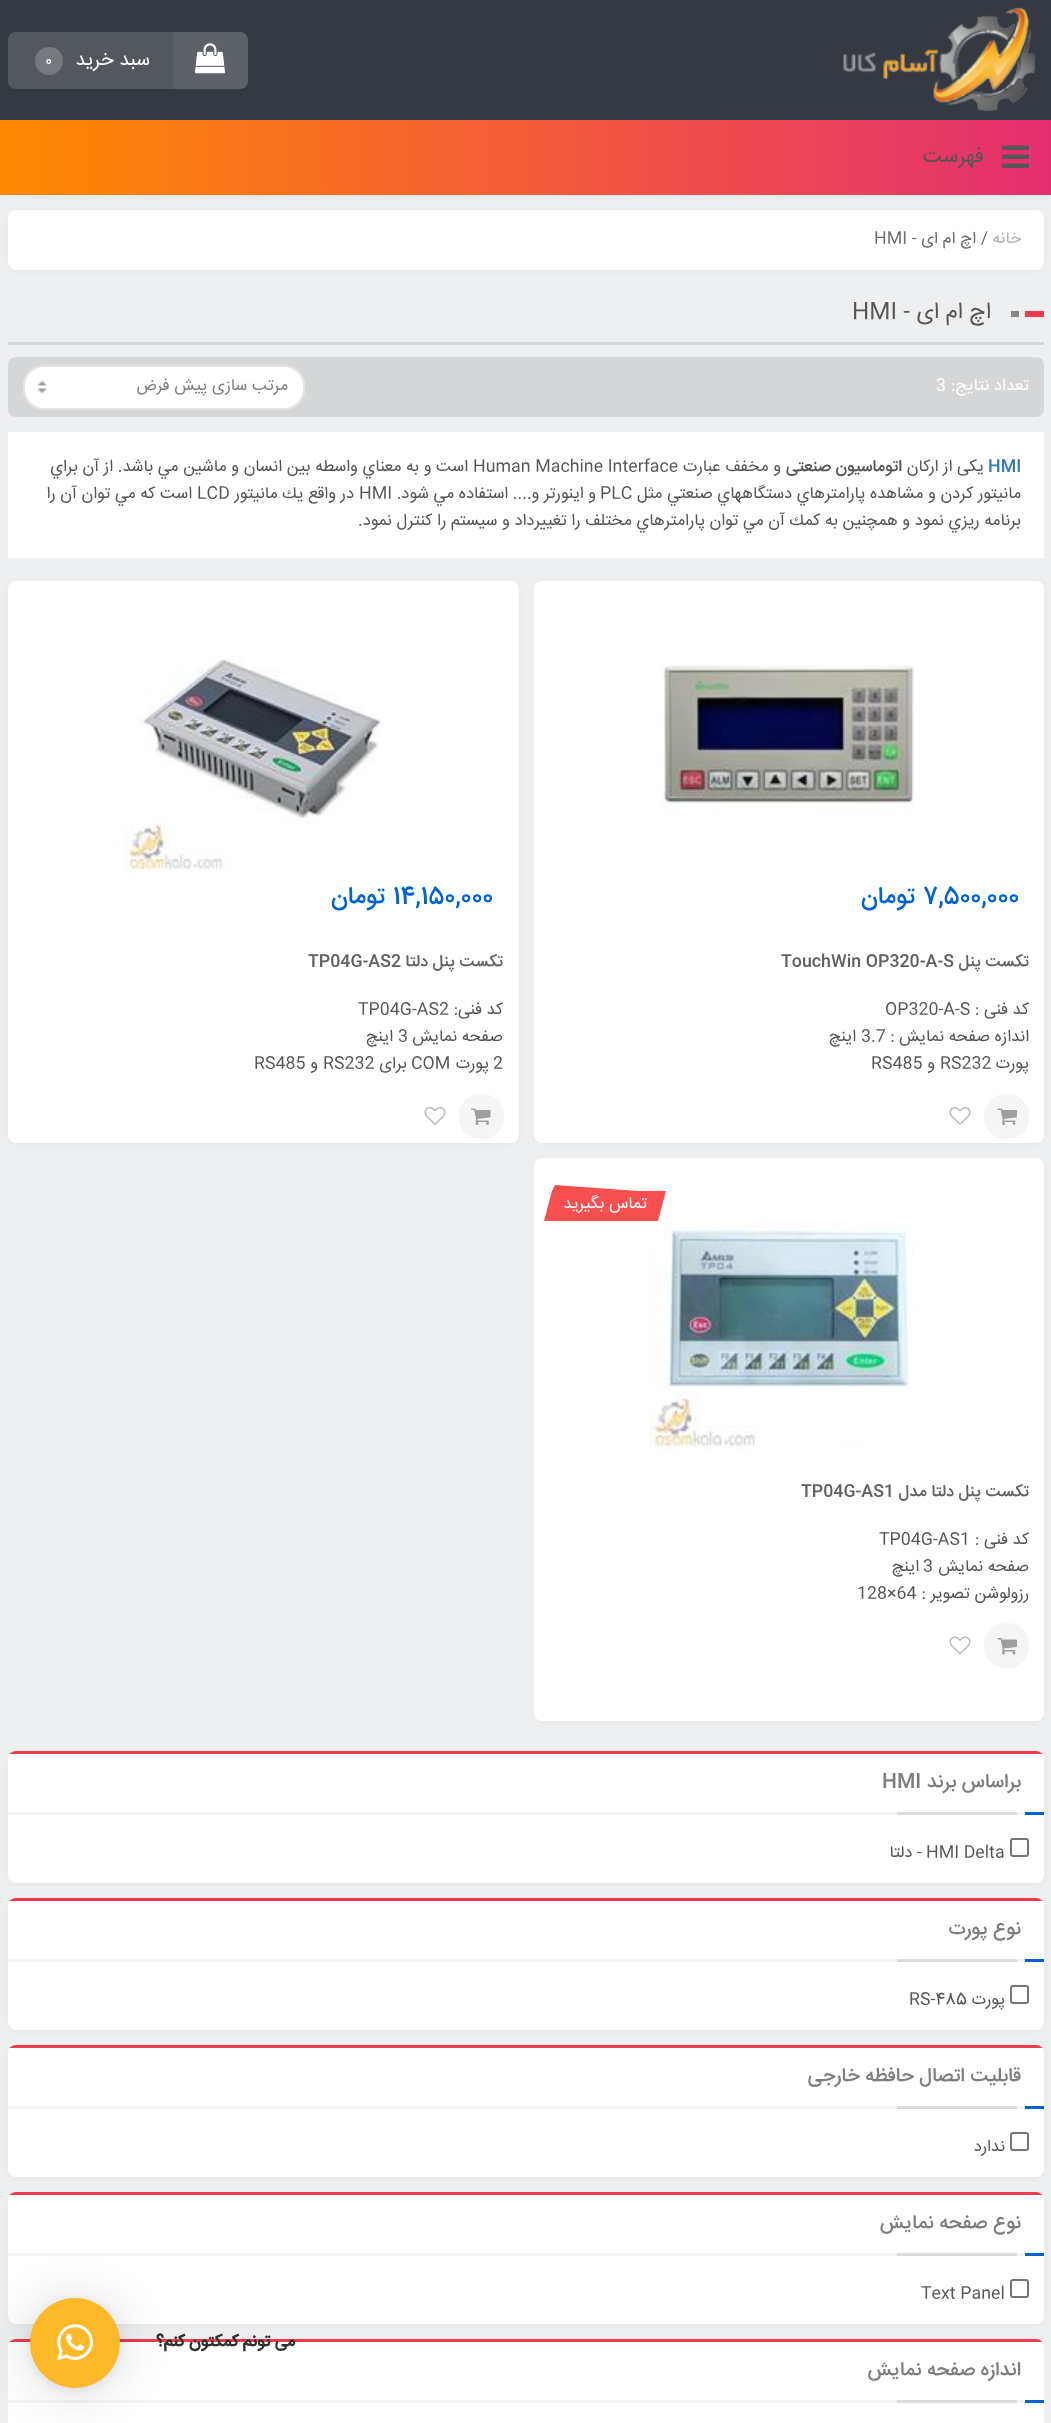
<svg xmlns="http://www.w3.org/2000/svg" width="1051" height="2423" viewBox="0 0 1051 2423">
  <defs>
    <linearGradient id="g1" gradientUnits="userSpaceOnUse" x1="0" y1="158" x2="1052" y2="157"><stop offset="0" stop-color="rgb(255,138,0)"/><stop offset="1" stop-color="rgb(229,46,113)"/></linearGradient>
    <clipPath id="clip1"><rect x="8" y="1751" width="1036" height="132" rx="8"/></clipPath>
    <clipPath id="clip2"><rect x="8" y="1898" width="1036" height="132" rx="8"/></clipPath>
    <clipPath id="clip3"><rect x="8" y="2045" width="1036" height="132" rx="8"/></clipPath>
    <clipPath id="clip4"><rect x="8" y="2192" width="1036" height="132" rx="8"/></clipPath>
    <clipPath id="clip5"><rect x="8" y="2339" width="1036" height="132" rx="8"/></clipPath>
  </defs>
  <rect width="100%" height="100%" fill="rgb(238,239,241)"/>
  <rect x="0" y="0" width="1051" height="120" fill="rgb(53,58,66)"/>
  <image x="843" y="7" width="192" height="104" href="pic1.png"/>
  <path d="M173 32H240C244.5 32 248 35.5 248 40V81C248 85.5 244.5 89 240 89H173Z" fill="rgb(93,97,104)"/>
  <image x="195" y="43" width="30" height="31" href="pic2.png"/>
  <path d="M16 32H173V89H16C11.5 89 8 85.5 8 81V40C8 35.5 11.5 32 16 32Z" fill="rgb(83,88,94)"/>
  <text x="150" y="65" font-family="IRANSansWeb" font-size="19.5" direction="rtl" fill="rgb(255,255,255)">سبد خرید</text>
  <circle cx="49" cy="61" r="14" fill="rgb(117,121,126)"/>
  <text x="45" y="65" font-family="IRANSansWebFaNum" font-size="15" fill="rgb(255,255,255)">0</text>
  <rect x="5" y="126" width="1042" height="66" fill="rgba(0,0,0,0.1)" filter="blur(5px)"/>
  <rect x="0" y="120" width="1051" height="75" fill="url(#g1)"/>
  <image x="1002" y="145" width="27" height="23" href="pic3.png"/>
  <text x="984" y="162" font-family="IRANSansWeb" font-size="21" direction="rtl" fill="rgb(85,85,85)">فهرست</text>
  <rect x="12" y="216" width="1028" height="51" rx="3" fill="rgba(0,0,0,0.1)" filter="blur(5px)"/>
  <rect x="8" y="210" width="1036" height="60" rx="8" fill="rgb(255,255,255)"/>
  <text x="1021" y="243" font-family="IRANSansWeb" font-size="16.5" direction="rtl" fill="rgb(177,177,177)">خانه</text>
  <text x="988" y="243" font-family="IRANSansWeb" font-size="16.5" direction="rtl" fill="rgb(107,107,107)">/ اچ ام ای -</text>
  <text x="874" y="243" font-family="IRANSansWeb" font-size="16.5" fill="rgb(107,107,107)">HMI</text>
  <rect x="8" y="342" width="1036" height="3" fill="rgb(214,215,217)"/>
  <rect x="1025" y="311" width="19" height="6" fill="rgb(239,57,78)"/>
  <rect x="1011" y="311" width="8" height="6" fill="rgb(134,134,134)"/>
  <text x="991" y="318" font-family="IRANSansWeb" font-size="22.5" direction="rtl" fill="rgb(85,85,85)">اچ ام ای -</text>
  <text x="852" y="318" font-family="IRANSansWeb" font-size="22.5" fill="rgb(85,85,85)">HMI</text>
  <rect x="8" y="357" width="1036" height="60" rx="8" fill="rgb(214,215,217)"/>
  <text x="1029" y="390" font-family="IRANSansWeb" font-size="16.5" direction="rtl" fill="rgb(255,255,255)">تعداد نتایج:</text>
  <text x="936" y="390" font-family="IRANSansWeb" font-size="16.5" fill="rgb(255,255,255)">3</text>
  <rect x="23" y="365" width="282" height="45" rx="21" fill="rgb(255,255,255)"/>
  <image x="37" y="380" width="10" height="14" href="pic4.png"/>
  <rect x="24" y="366" width="280" height="43" rx="20" fill="none" stroke="rgb(227,227,227)" stroke-width="2"/>
  <text x="288" y="390" font-family="IRANSansWeb" font-size="16.5" direction="rtl" fill="rgb(126,126,126)">مرتب سازی پیش فرض</text>
  <rect x="8" y="432" width="1036" height="126" fill="rgb(255,255,255)"/>
  <text x="988" y="471" font-family="IRANSansWeb" font-size="16.5" font-weight="500" fill="rgb(51,122,183)">HMI</text>
  <text x="984" y="471" font-family="IRANSansWeb" font-size="16.5" direction="rtl" fill="rgb(85,85,85)">یکی از ارکان</text>
  <text x="902" y="471" font-family="IRANSansWeb" font-size="16.5" font-weight="500" direction="rtl" fill="rgb(85,85,85)">اتوماسیون صنعتی</text>
  <text x="781" y="471" font-family="IRANSansWeb" font-size="16.5" direction="rtl" fill="rgb(85,85,85)">و مخفف عبارت</text>
  <text x="473" y="471" font-family="IRANSansWeb" font-size="16.5" fill="rgb(85,85,85)">Human Machine Interface</text>
  <g font-family="IRANSansWeb" font-size="16.5" direction="rtl" fill="rgb(85,85,85)">
    <text x="468" y="471">است و به معناي واسطه بين انسان و ماشين مي باشد. از آن براي</text>
    <text x="1021" y="498">مانيتور كردن و مشاهده پارامترهاي دستگاههاي صنعتي مثل</text>
  </g>
  <text x="600" y="498" font-family="IRANSansWeb" font-size="16.5" fill="rgb(85,85,85)">PLC</text>
  <text x="596" y="498" font-family="IRANSansWeb" font-size="16.5" direction="rtl" fill="rgb(85,85,85)">و اينورتر و.... استفاده مي شود.</text>
  <text x="359" y="498" font-family="IRANSansWeb" font-size="16.5" fill="rgb(85,85,85)">HMI</text>
  <text x="354" y="498" font-family="IRANSansWeb" font-size="16.5" direction="rtl" fill="rgb(85,85,85)">در واقع يك مانيتور</text>
  <text x="197" y="498" font-family="IRANSansWeb" font-size="16.5" fill="rgb(85,85,85)">LCD</text>
  <g font-family="IRANSansWeb" font-size="16.5" direction="rtl" fill="rgb(85,85,85)">
    <text x="192" y="498">است كه مي توان آن را</text>
    <text x="1021" y="525">برنامه ريزي نمود و همچنين به كمك آن مي توان پارامترهاي مختلف را تغييرداد و سيستم را كنترل نمود.</text>
  </g>
  <rect x="539" y="587" width="501" height="553" rx="3" fill="rgba(0,0,0,0.1)" filter="blur(5px)"/>
  <rect x="534" y="581" width="510" height="562" rx="8" fill="rgb(255,255,255)"/>
  <image x="661" y="665" width="253" height="146" href="pic5.png"/>
  <text x="923" y="903" font-family="IRANSansWebFaNum" font-size="24" font-weight="500" letter-spacing="-0.25" fill="rgb(0,99,209)">7,500,000</text>
  <text x="915" y="903" font-family="IRANSansWebFaNum" font-size="24" font-weight="500" letter-spacing="-0.25" direction="rtl" fill="rgb(0,99,209)">تومان</text>
  <text x="1029" y="966" font-family="IRANSansWeb" font-size="16.5" font-weight="500" direction="rtl" fill="rgb(98,96,96)">تکست پنل</text>
  <text x="781" y="966" font-family="IRANSansWeb" font-size="16.5" font-weight="500" fill="rgb(98,96,96)">TouchWin OP320-A-S</text>
  <text x="1029" y="1014" font-family="IRANSansWeb" font-size="16.5" direction="rtl" fill="rgb(85,85,85)">کد فنی :</text>
  <text x="885" y="1014" font-family="IRANSansWeb" font-size="16.5" fill="rgb(85,85,85)">OP320-A-S</text>
  <text x="1029" y="1041" font-family="IRANSansWeb" font-size="16.5" direction="rtl" fill="rgb(85,85,85)">اندازه صفحه نمایش :</text>
  <text x="861" y="1041" font-family="IRANSansWeb" font-size="16.5" fill="rgb(85,85,85)">3.7</text>
  <g font-family="IRANSansWeb" font-size="16.5" direction="rtl" fill="rgb(85,85,85)">
    <text x="856" y="1041">اینچ</text>
    <text x="1029" y="1068">پورت</text>
  </g>
  <text x="940" y="1068" font-family="IRANSansWeb" font-size="16.5" fill="rgb(85,85,85)">RS232</text>
  <text x="935" y="1068" font-family="IRANSansWeb" font-size="16.5" direction="rtl" fill="rgb(85,85,85)">و</text>
  <text x="871" y="1068" font-family="IRANSansWeb" font-size="16.5" fill="rgb(85,85,85)">RS485</text>
  <rect x="984" y="1094" width="45" height="45" rx="21" fill="rgb(245,245,245)"/>
  <image x="997" y="1108" width="20" height="17" href="pic6.png"/>
  <image x="949" y="1107" width="22" height="18" href="pic7.png"/>
  <rect x="12" y="587" width="503" height="553" rx="3" fill="rgba(0,0,0,0.1)" filter="blur(5px)"/>
  <rect x="8" y="581" width="511" height="562" rx="8" fill="rgb(255,255,255)"/>
  <image x="124" y="656" width="259" height="217" href="pic8.png"/>
  <text x="393" y="903" font-family="IRANSansWebFaNum" font-size="24" font-weight="500" letter-spacing="-0.25" fill="rgb(0,99,209)">14,150,000</text>
  <text x="385" y="903" font-family="IRANSansWebFaNum" font-size="24" font-weight="500" letter-spacing="-0.25" direction="rtl" fill="rgb(0,99,209)">تومان</text>
  <text x="503" y="966" font-family="IRANSansWeb" font-size="16.5" font-weight="500" direction="rtl" fill="rgb(98,96,96)">تکست پنل دلتا</text>
  <text x="308" y="966" font-family="IRANSansWeb" font-size="16.5" font-weight="500" fill="rgb(98,96,96)">TP04G-AS2</text>
  <text x="503" y="1014" font-family="IRANSansWeb" font-size="16.5" direction="rtl" fill="rgb(85,85,85)">کد فنی:</text>
  <text x="358" y="1014" font-family="IRANSansWeb" font-size="16.5" fill="rgb(85,85,85)">TP04G-AS2</text>
  <text x="503" y="1041" font-family="IRANSansWeb" font-size="16.5" direction="rtl" fill="rgb(85,85,85)">صفحه نمایش</text>
  <text x="398" y="1041" font-family="IRANSansWeb" font-size="16.5" fill="rgb(85,85,85)">3</text>
  <text x="393" y="1041" font-family="IRANSansWeb" font-size="16.5" direction="rtl" fill="rgb(85,85,85)">اینچ</text>
  <text x="493" y="1068" font-family="IRANSansWeb" font-size="16.5" fill="rgb(85,85,85)">2</text>
  <text x="489" y="1068" font-family="IRANSansWeb" font-size="16.5" direction="rtl" fill="rgb(85,85,85)">پورت</text>
  <text x="411" y="1068" font-family="IRANSansWeb" font-size="16.5" fill="rgb(85,85,85)">COM</text>
  <text x="407" y="1068" font-family="IRANSansWeb" font-size="16.5" direction="rtl" fill="rgb(85,85,85)">برای</text>
  <text x="323" y="1068" font-family="IRANSansWeb" font-size="16.5" fill="rgb(85,85,85)">RS232</text>
  <text x="318" y="1068" font-family="IRANSansWeb" font-size="16.5" direction="rtl" fill="rgb(85,85,85)">و</text>
  <text x="254" y="1068" font-family="IRANSansWeb" font-size="16.5" fill="rgb(85,85,85)">RS485</text>
  <rect x="459" y="1094" width="45" height="45" rx="21" fill="rgb(245,245,245)"/>
  <image x="471" y="1108" width="20" height="17" href="pic9.png"/>
  <image x="424" y="1107" width="22" height="18" href="pic7.png"/>
  <rect x="539" y="1164" width="501" height="554" rx="3" fill="rgba(0,0,0,0.1)" filter="blur(5px)"/>
  <rect x="534" y="1158" width="510" height="563" rx="8" fill="rgb(255,255,255)"/>
  <path d="M552 1191H666L658 1221H544Z" fill="rgb(247,79,79)"/>
  <path d="M638 1191H552L555 1185Z" fill="rgb(247,79,79)"/>
  <text x="647" y="1208" font-family="IRANSansWeb" font-size="16.5" direction="rtl" fill="rgb(255,255,255)">تماس بگیرید</text>
  <image x="649" y="1222" width="265" height="228" href="pic10.png"/>
  <text x="1029" y="1496" font-family="IRANSansWeb" font-size="16.5" font-weight="500" direction="rtl" fill="rgb(98,96,96)">تکست پنل دلتا مدل</text>
  <text x="801" y="1496" font-family="IRANSansWeb" font-size="16.5" font-weight="500" fill="rgb(98,96,96)">TP04G-AS1</text>
  <text x="1029" y="1544" font-family="IRANSansWeb" font-size="16.5" direction="rtl" fill="rgb(85,85,85)">کد فنی :</text>
  <text x="879" y="1544" font-family="IRANSansWeb" font-size="16.5" fill="rgb(85,85,85)">TP04G-AS1</text>
  <text x="1029" y="1571" font-family="IRANSansWeb" font-size="16.5" direction="rtl" fill="rgb(85,85,85)">صفحه نمایش</text>
  <text x="923" y="1571" font-family="IRANSansWeb" font-size="16.5" fill="rgb(85,85,85)">3</text>
  <g font-family="IRANSansWeb" font-size="16.5" direction="rtl" fill="rgb(85,85,85)">
    <text x="919" y="1571">اینچ</text>
    <text x="1029" y="1598">رزولوشن تصویر :</text>
  </g>
  <text x="857" y="1598" font-family="IRANSansWeb" font-size="16.5" fill="rgb(85,85,85)">128×64</text>
  <rect x="984" y="1623" width="45" height="45" rx="21" fill="rgb(245,245,245)"/>
  <image x="997" y="1638" width="20" height="17" href="pic11.png"/>
  <image x="949" y="1636" width="22" height="19" href="pic12.png"/>
  <rect x="12" y="1757" width="1028" height="123" rx="3" fill="rgba(0,0,0,0.1)" filter="blur(5px)"/>
  <rect x="8" y="1751" width="1036" height="132" rx="8" fill="rgb(255,255,255)"/>
  <path d="M16 1751H1036C1040.5 1751 1044 1754.5 1044 1759V1815H8V1759C8 1754.5 11.5 1751 16 1751Z" fill="rgb(255,255,255)"/>
  <g clip-path="url(#clip1)">
    <rect x="8" y="1751" width="1036" height="3" fill="rgb(239,57,78)"/>
  </g>
  <rect x="8" y="1812" width="1017" height="3" fill="rgb(245,245,245)"/>
  <text x="1021" y="1787" font-family="IRANSansWeb" font-size="19.5" font-weight="500" direction="rtl" fill="rgb(126,126,126)">براساس برند</text>
  <text x="882" y="1787" font-family="IRANSansWeb" font-size="19.5" font-weight="500" fill="rgb(126,126,126)">HMI</text>
  <rect x="1025" y="1812" width="19" height="3" fill="rgb(0,99,209)"/>
  <rect x="897" y="1812" width="120" height="3" fill="rgb(220,220,220)"/>
  <rect x="1011" y="1839" width="17" height="17" rx="2" fill="none" stroke="rgb(118,118,118)" stroke-width="2"/>
  <text x="926" y="1857" font-family="IRANSansWebFaNum" font-size="16.5" fill="rgb(85,85,85)">HMI Delta</text>
  <text x="922" y="1857" font-family="IRANSansWebFaNum" font-size="16.5" direction="rtl" fill="rgb(85,85,85)">- دلتا</text>
  <rect x="12" y="1904" width="1028" height="123" rx="3" fill="rgba(0,0,0,0.1)" filter="blur(5px)"/>
  <rect x="8" y="1898" width="1036" height="132" rx="8" fill="rgb(255,255,255)"/>
  <path d="M16 1898H1036C1040.5 1898 1044 1901.5 1044 1906V1962H8V1906C8 1901.5 11.5 1898 16 1898Z" fill="rgb(255,255,255)"/>
  <g clip-path="url(#clip2)">
    <rect x="8" y="1898" width="1036" height="3" fill="rgb(239,57,78)"/>
  </g>
  <rect x="8" y="1959" width="1017" height="3" fill="rgb(245,245,245)"/>
  <text x="1021" y="1934" font-family="IRANSansWeb" font-size="19.5" font-weight="500" direction="rtl" fill="rgb(126,126,126)">نوع پورت</text>
  <rect x="1025" y="1959" width="19" height="3" fill="rgb(0,99,209)"/>
  <rect x="897" y="1959" width="120" height="3" fill="rgb(220,220,220)"/>
  <rect x="1011" y="1986" width="17" height="17" rx="2" fill="none" stroke="rgb(118,118,118)" stroke-width="2"/>
  <text x="1005" y="2004" font-family="IRANSansWebFaNum" font-size="16.5" direction="rtl" fill="rgb(85,85,85)">پورت</text>
  <text x="909" y="2004" font-family="IRANSansWebFaNum" font-size="16.5" fill="rgb(85,85,85)">RS-485</text>
  <rect x="12" y="2051" width="1028" height="123" rx="3" fill="rgba(0,0,0,0.1)" filter="blur(5px)"/>
  <rect x="8" y="2045" width="1036" height="132" rx="8" fill="rgb(255,255,255)"/>
  <path d="M16 2045H1036C1040.5 2045 1044 2048.5 1044 2053V2109H8V2053C8 2048.5 11.5 2045 16 2045Z" fill="rgb(255,255,255)"/>
  <g clip-path="url(#clip3)">
    <rect x="8" y="2045" width="1036" height="3" fill="rgb(239,57,78)"/>
  </g>
  <rect x="8" y="2106" width="1017" height="3" fill="rgb(245,245,245)"/>
  <text x="1021" y="2081" font-family="IRANSansWeb" font-size="19.5" font-weight="500" direction="rtl" fill="rgb(126,126,126)">قابلیت اتصال حافظه خارجی</text>
  <rect x="1025" y="2106" width="19" height="3" fill="rgb(0,99,209)"/>
  <rect x="897" y="2106" width="120" height="3" fill="rgb(220,220,220)"/>
  <rect x="1011" y="2133" width="17" height="17" rx="2" fill="none" stroke="rgb(118,118,118)" stroke-width="2"/>
  <text x="1005" y="2151" font-family="IRANSansWebFaNum" font-size="16.5" direction="rtl" fill="rgb(85,85,85)">ندارد</text>
  <rect x="12" y="2198" width="1028" height="123" rx="3" fill="rgba(0,0,0,0.1)" filter="blur(5px)"/>
  <rect x="8" y="2192" width="1036" height="132" rx="8" fill="rgb(255,255,255)"/>
  <path d="M16 2192H1036C1040.5 2192 1044 2195.5 1044 2200V2256H8V2200C8 2195.5 11.5 2192 16 2192Z" fill="rgb(255,255,255)"/>
  <g clip-path="url(#clip4)">
    <rect x="8" y="2192" width="1036" height="3" fill="rgb(239,57,78)"/>
  </g>
  <rect x="8" y="2253" width="1017" height="3" fill="rgb(245,245,245)"/>
  <text x="1021" y="2228" font-family="IRANSansWeb" font-size="19.5" font-weight="500" direction="rtl" fill="rgb(126,126,126)">نوع صفحه نمایش</text>
  <rect x="1025" y="2253" width="19" height="3" fill="rgb(0,99,209)"/>
  <rect x="897" y="2253" width="120" height="3" fill="rgb(220,220,220)"/>
  <rect x="1011" y="2280" width="17" height="17" rx="2" fill="none" stroke="rgb(118,118,118)" stroke-width="2"/>
  <text x="921" y="2298" font-family="IRANSansWebFaNum" font-size="16.5" fill="rgb(85,85,85)">Text Panel</text>
  <rect x="8" y="2339" width="1036" height="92" rx="8" fill="rgb(255,255,255)"/>
  <path d="M16 2339H1036C1040.5 2339 1044 2342.5 1044 2347V2403H8V2347C8 2342.5 11.5 2339 16 2339Z" fill="rgb(255,255,255)"/>
  <g clip-path="url(#clip5)">
    <rect x="8" y="2339" width="1036" height="3" fill="rgb(239,57,78)"/>
  </g>
  <rect x="8" y="2400" width="1017" height="3" fill="rgb(245,245,245)"/>
  <text x="1021" y="2375" font-family="IRANSansWeb" font-size="19.5" font-weight="500" direction="rtl" fill="rgb(126,126,126)">اندازه صفحه نمایش</text>
  <rect x="1025" y="2400" width="19" height="3" fill="rgb(0,99,209)"/>
  <rect x="897" y="2400" width="120" height="3" fill="rgb(220,220,220)"/>
  <rect x="30" y="2301" width="90" height="90" rx="45" fill="rgba(0,0,0,0.16)" filter="blur(24px)"/>
  <rect x="30" y="2300" width="90" height="90" rx="45" fill="rgba(0,0,0,0.06)" filter="blur(4.5px)"/>
  <circle cx="75" cy="2343" r="45" fill="rgb(253,185,40)"/>
  <text x="295" y="2346" font-family="IRANSansWeb" font-size="16.5" font-weight="bold" direction="rtl" fill="rgb(48,48,48)">می تونم کمکتون کنم؟</text>
  <image x="57" y="2324" width="36" height="37" href="pic13.png"/>
</svg>
